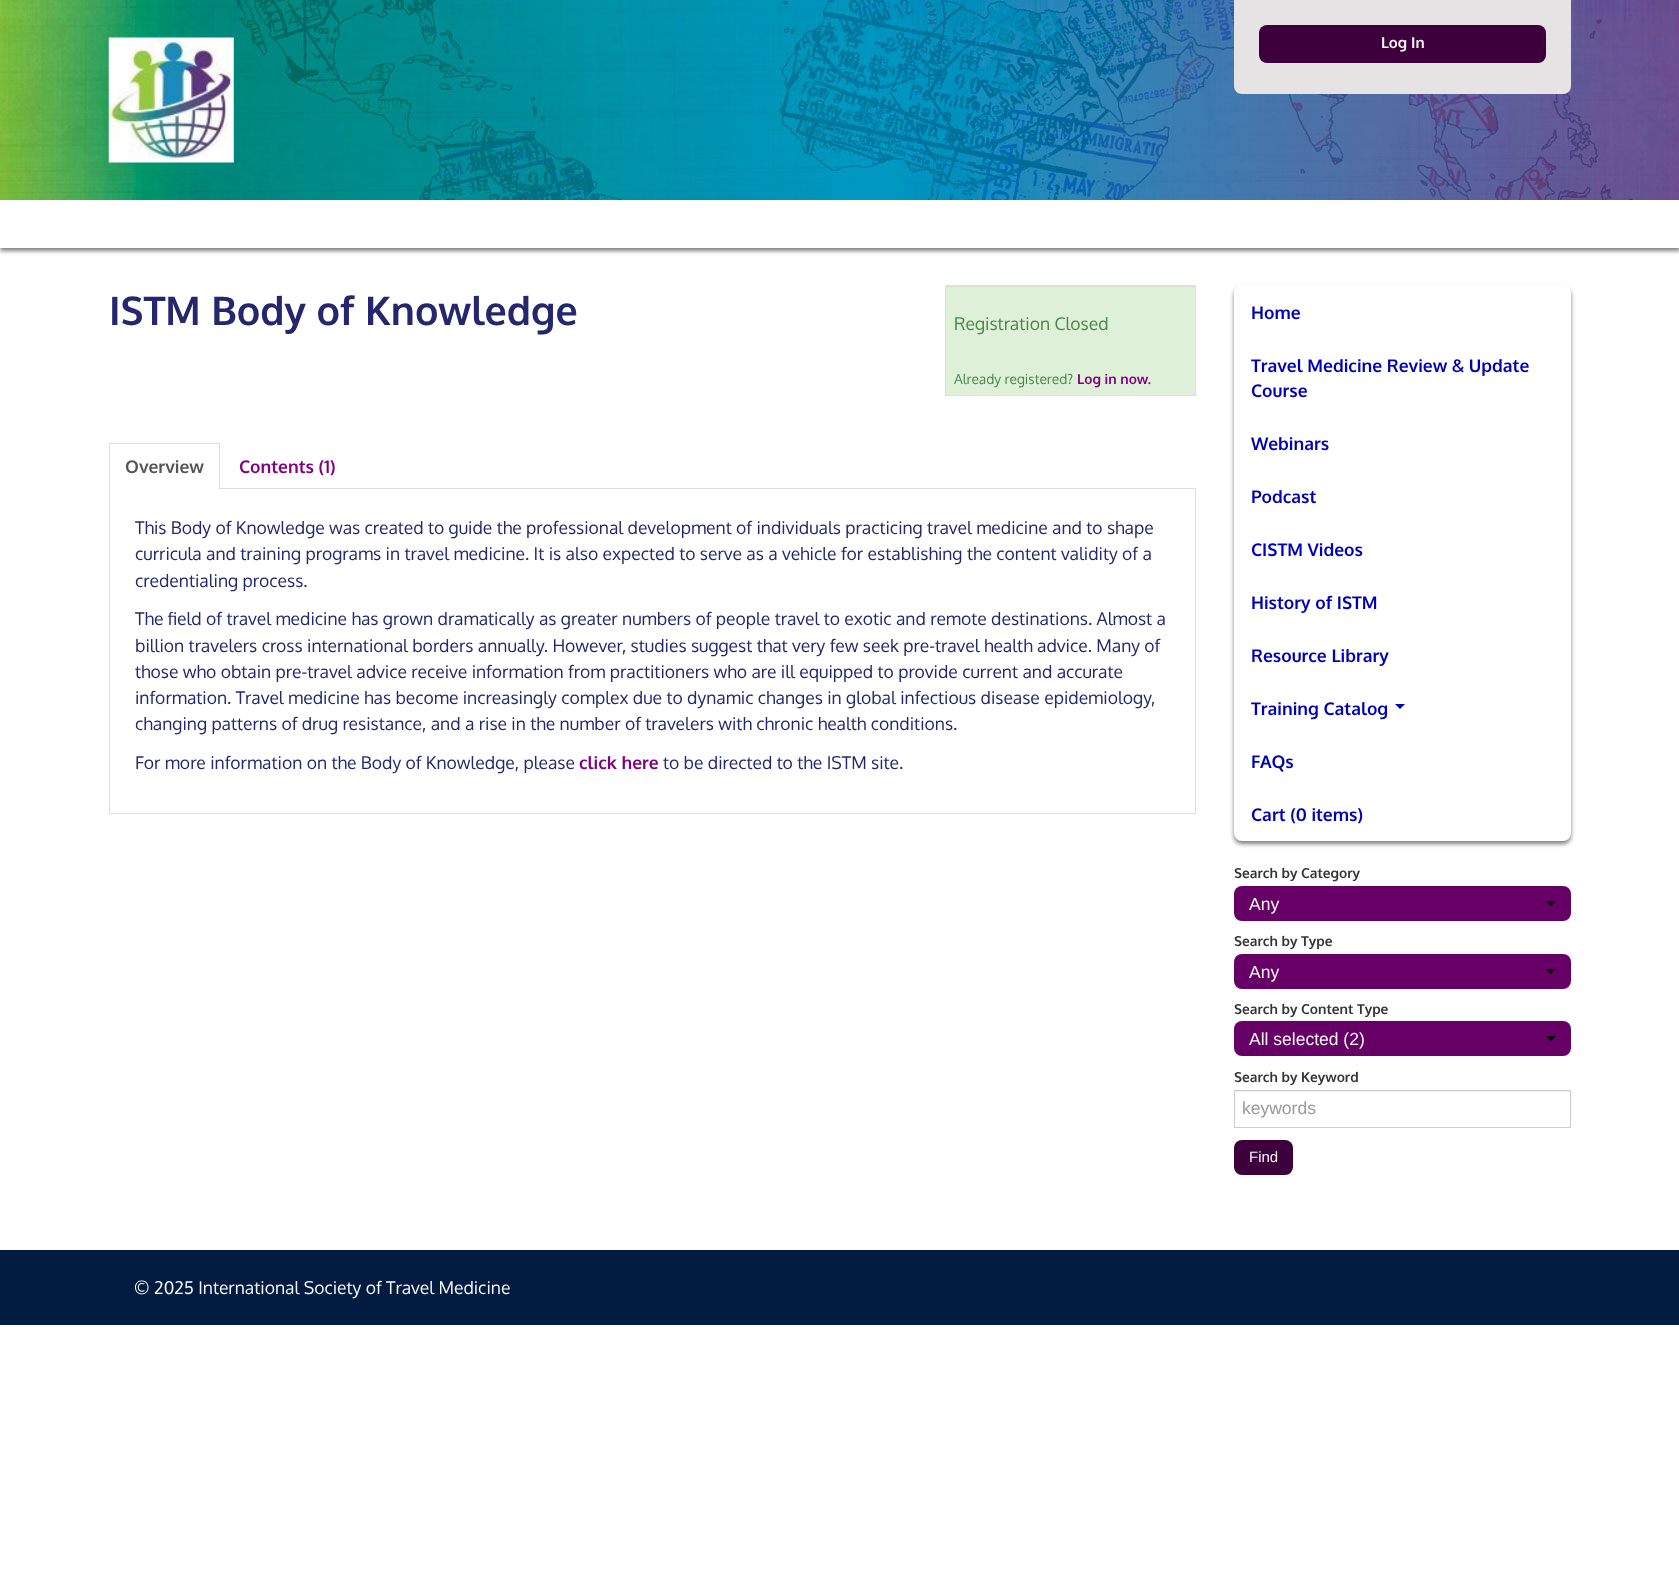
<svg xmlns="http://www.w3.org/2000/svg" width="1679" height="1583" viewBox="0 0 1679 1583">
  <rect width="100%" height="100%" fill="rgb(255,255,255)"/>
  <rect x="0" y="204" width="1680" height="47" fill="rgba(0,0,0,0.5)" filter="blur(2px)"/>
  <image x="0" y="0" width="1679" height="200" href="pic1.png"/>
  <image x="108" y="37" width="126" height="126" href="pic2.png"/>
  <path d="M1234 0H1571V86C1571 90.5 1567.5 94 1563 94H1242C1237.5 94 1234 90.5 1234 86Z" fill="rgb(229,227,227)"/>
  <rect x="1259" y="25" width="287" height="38" rx="8" fill="rgb(61,0,61)"/>
  <text x="1381" y="48" font-family="Oxygen" font-size="15" font-weight="bold" fill="rgb(247,247,247)">Log In</text>
  <rect x="0" y="200" width="1679" height="48" fill="rgb(255,255,255)"/>
  <text x="109" y="325" font-family="Oxygen" font-size="39.4" font-weight="bold" fill="rgb(36,38,110)">ISTM Body of Knowledge</text>
  <rect x="946" y="287" width="249" height="108" fill="rgb(223,240,216)"/>
  <rect x="946" y="286" width="249" height="1" fill="rgb(212,228,205)"/>
  <rect x="945.5" y="285.5" width="250" height="110" fill="none" stroke="rgb(214,233,198)"/>
  <text x="954" y="330" font-family="Oxygen" font-size="17.5" fill="rgb(70,136,71)">Registration Closed</text>
  <text x="954" y="384" font-family="Oxygen" font-size="13.75" fill="rgb(70,136,71)">Already registered?</text>
  <text x="1077" y="384" font-family="Oxygen" font-size="13.75" font-weight="bold" fill="rgb(128,0,128)">Log in now.</text>
  <rect x="109.5" y="488.5" width="1086" height="325" fill="none" stroke="rgb(221,221,221)"/>
  <rect x="110" y="488" width="109" height="1" fill="rgb(255,255,255)"/>
  <rect x="109" y="443" width="111" height="1" fill="rgb(221,221,221)"/>
  <rect x="219" y="443" width="1" height="46" fill="rgb(221,221,221)"/>
  <rect x="109" y="443" width="1" height="46" fill="rgb(221,221,221)"/>
  <text x="125" y="473" font-family="Oxygen" font-size="17.5" font-weight="bold" fill="rgb(85,85,85)">Overview</text>
  <text x="239" y="473" font-family="Oxygen" font-size="17.5" font-weight="bold" fill="rgb(128,0,128)">Contents (1)</text>
  <g font-family="Oxygen" font-size="17.5" fill="rgb(36,38,110)">
    <text>
      <tspan x="135" y="534">This Body of Knowledge was created to guide the professional development of individuals practicing travel medicine and to shape</tspan>
      <tspan x="135" y="560">curricula and training programs in travel medicine. It is also expected to serve as a vehicle for establishing the content validity of a</tspan>
      <tspan x="135" y="587">credentialing process.</tspan>
    </text>
    <text>
      <tspan x="135" y="625">The field of travel medicine has grown dramatically as greater numbers of people travel to exotic and remote destinations. Almost a</tspan>
      <tspan x="135" y="652">billion travelers cross international borders annually. However, studies suggest that very few seek pre-travel health advice. Many of</tspan>
      <tspan x="135" y="678">those who obtain pre-travel advice receive information from practitioners who are ill equipped to provide current and accurate</tspan>
      <tspan x="135" y="704">information. Travel medicine has become increasingly complex due to dynamic changes in global infectious disease epidemiology,</tspan>
      <tspan x="135" y="730">changing patterns of drug resistance, and a rise in the number of travelers with chronic health conditions.</tspan>
    </text>
    <text x="135" y="769">For more information on the Body of Knowledge, please</text>
  </g>
  <text x="579" y="769" font-family="Oxygen" font-size="17.5" font-weight="bold" fill="rgb(128,0,128)">click here</text>
  <text x="663" y="769" font-family="Oxygen" font-size="17.5" fill="rgb(36,38,110)">to be directed to the ISTM site.</text>
  <rect x="1234" y="288" width="337" height="556" rx="8" fill="rgba(0,0,0,0.5)" filter="blur(2px)"/>
  <rect x="1234" y="285" width="337" height="556" rx="8" fill="rgb(255,255,255)"/>
  <rect x="1234" y="285" width="337" height="1" fill="rgb(255,255,255)"/>
  <g font-family="Oxygen" font-size="17.5" font-weight="bold" fill="rgb(0,0,184)">
    <text x="1251" y="319">Home</text>
    <text>
      <tspan x="1251" y="372">Travel Medicine Review &amp; Update</tspan>
      <tspan x="1251" y="397">Course</tspan>
    </text>
    <text x="1251" y="450">Webinars</text>
    <text x="1251" y="503">Podcast</text>
    <text x="1251" y="556">CISTM Videos</text>
    <text x="1251" y="609">History of ISTM</text>
    <text x="1251" y="662">Resource Library</text>
    <text x="1251" y="715">Training Catalog</text>
  </g>
  <path d="M1395 704H1405L1400 709Z" fill="rgb(0,0,184)"/>
  <g font-family="Oxygen" font-size="17.5" font-weight="bold" fill="rgb(0,0,184)">
    <text x="1251" y="768">FAQs</text>
    <text x="1251" y="821">Cart (0 items)</text>
  </g>
  <text x="1234" y="878" font-family="Oxygen" font-size="13.75" font-weight="bold" fill="rgb(51,51,51)">Search by Category</text>
  <rect x="1234" y="886" width="337" height="35" rx="8" fill="rgb(102,0,102)"/>
  <text x="1249" y="910" font-family="Liberation Sans" font-size="17.5" fill="rgb(247,247,247)">Any</text>
  <path d="M1546 901H1556L1551 906Z" fill="rgb(0,0,0)"/>
  <text x="1234" y="946" font-family="Oxygen" font-size="13.75" font-weight="bold" fill="rgb(51,51,51)">Search by Type</text>
  <rect x="1234" y="954" width="337" height="35" rx="8" fill="rgb(102,0,102)"/>
  <text x="1249" y="978" font-family="Liberation Sans" font-size="17.5" fill="rgb(247,247,247)">Any</text>
  <path d="M1546 969H1556L1551 974Z" fill="rgb(0,0,0)"/>
  <text x="1234" y="1014" font-family="Oxygen" font-size="13.75" font-weight="bold" fill="rgb(51,51,51)">Search by Content Type</text>
  <rect x="1234" y="1021" width="337" height="35" rx="8" fill="rgb(102,0,102)"/>
  <text x="1249" y="1045" font-family="Liberation Sans" font-size="17.5" fill="rgb(247,247,247)">All selected (2)</text>
  <path d="M1546 1036H1556L1551 1041Z" fill="rgb(0,0,0)"/>
  <text x="1234" y="1082" font-family="Oxygen" font-size="13.75" font-weight="bold" fill="rgb(51,51,51)">Search by Keyword</text>
  <rect x="1235" y="1091" width="335" height="1" fill="rgb(236,236,236)"/>
  <rect x="1234.5" y="1090.5" width="336" height="37" fill="none" stroke="rgb(204,204,204)"/>
  <text x="1242" y="1114" font-family="Liberation Sans" font-size="17.5" fill="rgb(153,153,153)">keywords</text>
  <rect x="1234" y="1140" width="59" height="35" rx="8" fill="rgb(61,0,61)"/>
  <text x="1249" y="1162" font-family="Liberation Sans" font-size="15" fill="rgb(247,247,247)">Find</text>
  <rect x="0" y="1250" width="1679" height="75" fill="rgb(1,28,64)"/>
  <text x="134" y="1294" font-family="Oxygen" font-size="17.5" fill="rgb(247,247,247)">© 2025 International Society of Travel Medicine</text>
</svg>
